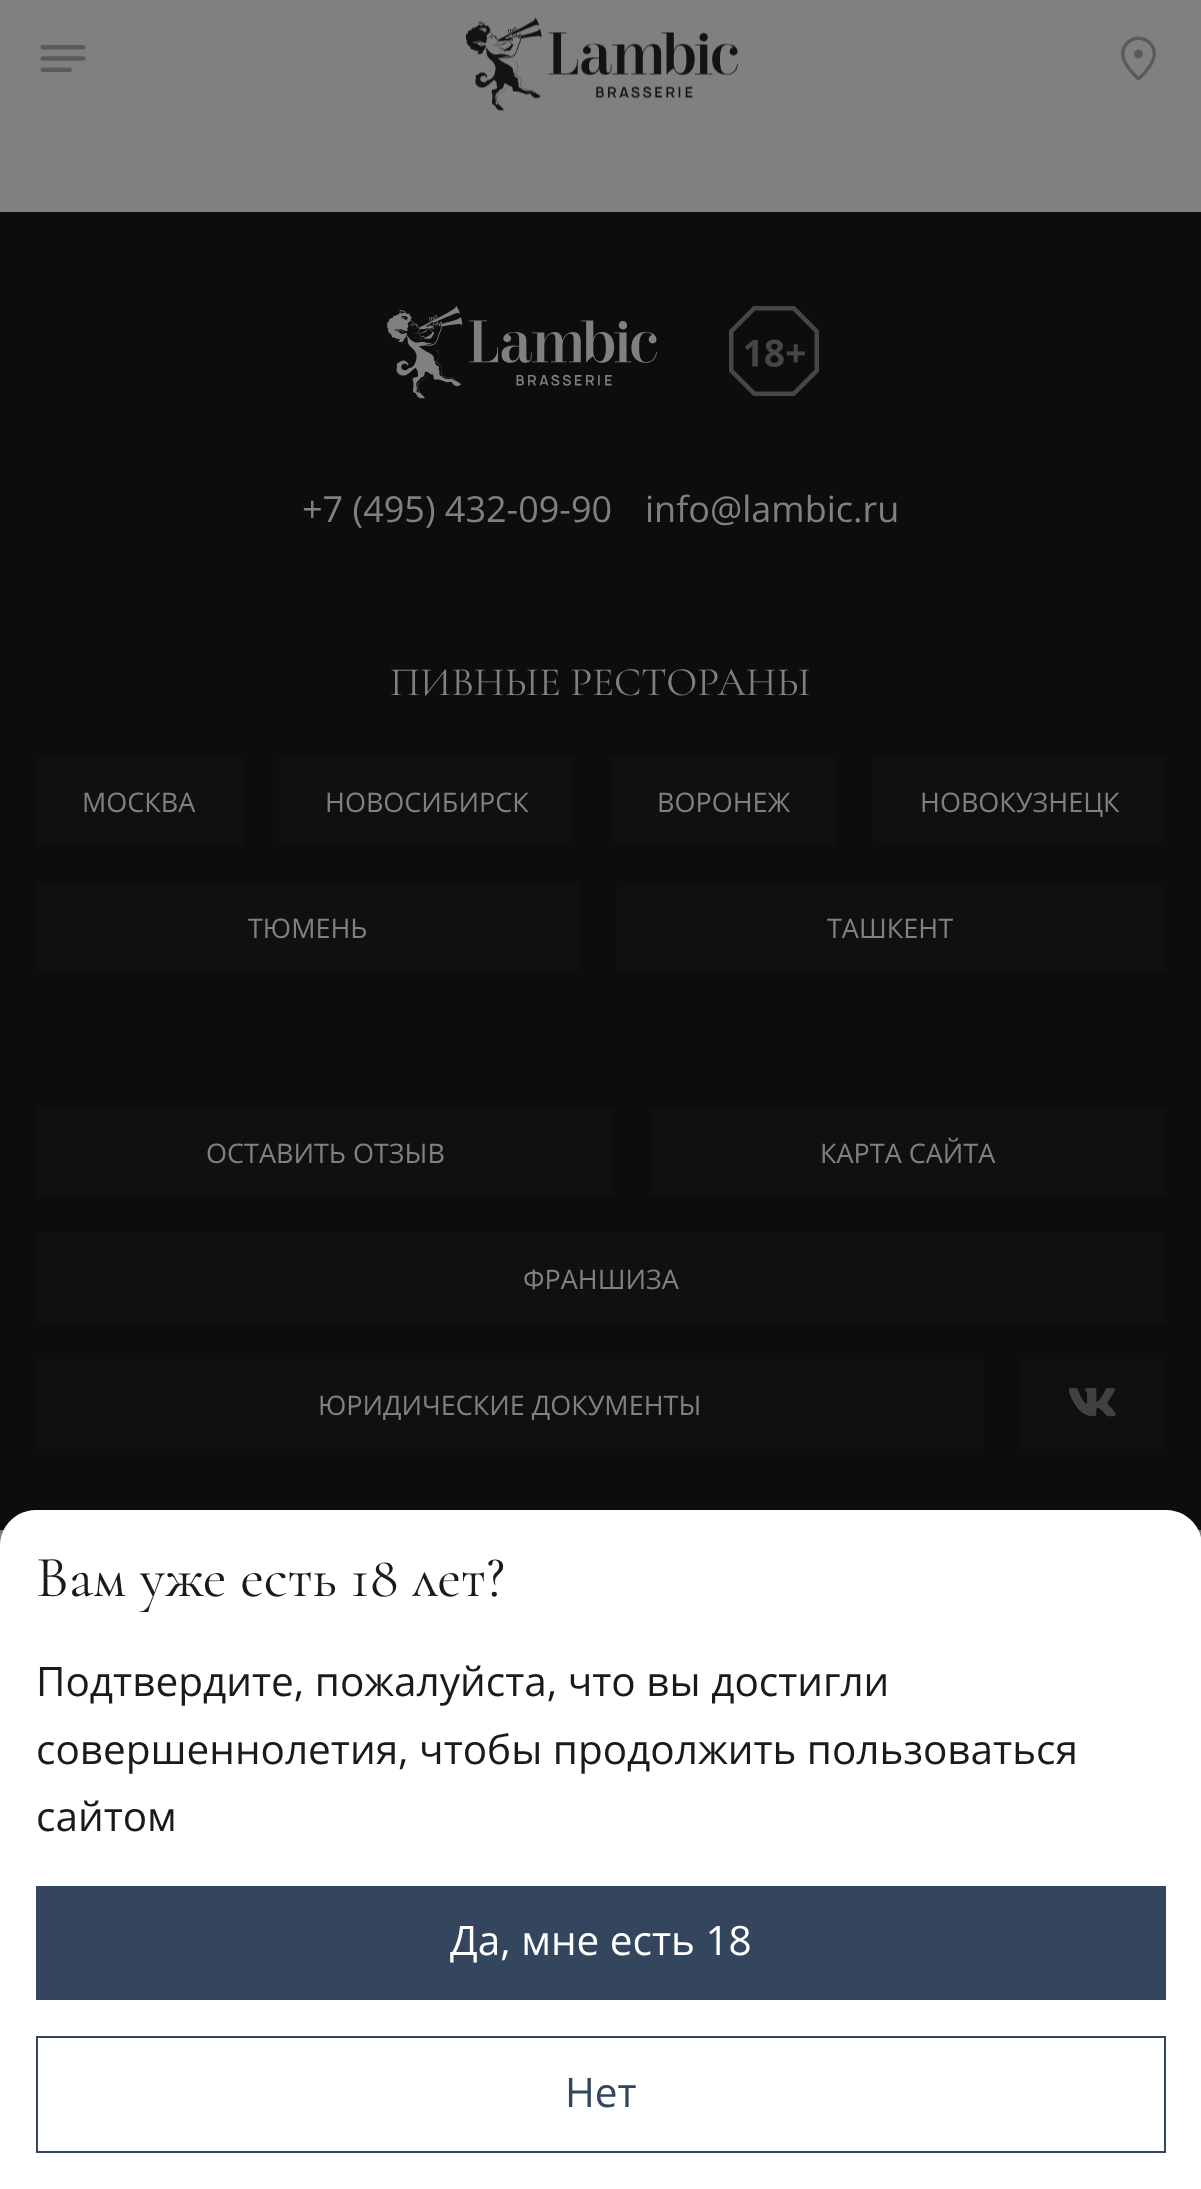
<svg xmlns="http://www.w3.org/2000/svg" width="1201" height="2189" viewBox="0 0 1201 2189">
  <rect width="100%" height="100%" fill="rgb(128,128,128)"/>
  <image x="40" y="45" width="46" height="27" href="pic1.png"/>
  <image x="465" y="17" width="273" height="94" href="pic2.png"/>
  <image x="1121" y="36" width="35" height="45" href="pic3.png"/>
  <rect x="0" y="212" width="1201" height="1318" fill="rgb(13,13,13)"/>
  <image x="387" y="306" width="270" height="93" href="pic4.png"/>
  <image x="729" y="306" width="90" height="90" href="pic5.png"/>
  <g font-family="Open Sans" font-size="36" fill="rgb(128,128,128)">
    <text x="302" y="522">+7 (495) 432-09-90</text>
    <text x="645" y="522">info@lambic.ru</text>
  </g>
  <text x="390" y="695" font-family="Cormorant Garamond" font-size="40.5" fill="rgb(128,128,128)">ПИВНЫЕ РЕСТОРАНЫ</text>
  <rect x="36" y="756" width="207" height="90" fill="rgb(16,16,16)"/>
  <text x="82" y="812" font-family="Open Sans" font-size="27" fill="rgb(128,128,128)">МОСКВА</text>
  <rect x="279" y="756" width="295" height="90" fill="rgb(16,16,16)"/>
  <text x="325" y="812" font-family="Open Sans" font-size="27" fill="rgb(128,128,128)">НОВОСИБИРСК</text>
  <rect x="610" y="756" width="227" height="90" fill="rgb(16,16,16)"/>
  <text x="657" y="812" font-family="Open Sans" font-size="27" fill="rgb(128,128,128)">ВОРОНЕЖ</text>
  <rect x="873" y="756" width="293" height="90" fill="rgb(16,16,16)"/>
  <text x="920" y="812" font-family="Open Sans" font-size="27" fill="rgb(128,128,128)">НОВОКУЗНЕЦК</text>
  <rect x="36" y="882" width="545" height="90" fill="rgb(16,16,16)"/>
  <text x="248" y="938" font-family="Open Sans" font-size="27" fill="rgb(128,128,128)">ТЮМЕНЬ</text>
  <rect x="617" y="882" width="549" height="90" fill="rgb(16,16,16)"/>
  <text x="827" y="938" font-family="Open Sans" font-size="27" fill="rgb(128,128,128)">ТАШКЕНТ</text>
  <rect x="36" y="1107" width="578" height="90" fill="rgb(16,16,16)"/>
  <text x="206" y="1163" font-family="Open Sans" font-size="27" fill="rgb(128,128,128)">ОСТАВИТЬ ОТЗЫВ</text>
  <rect x="650" y="1107" width="516" height="90" fill="rgb(16,16,16)"/>
  <text x="820" y="1163" font-family="Open Sans" font-size="27" fill="rgb(128,128,128)">КАРТА САЙТА</text>
  <rect x="36" y="1233" width="1130" height="90" fill="rgb(16,16,16)"/>
  <text x="523" y="1289" font-family="Open Sans" font-size="27" fill="rgb(128,128,128)">ФРАНШИЗА</text>
  <rect x="36" y="1359" width="947" height="90" fill="rgb(16,16,16)"/>
  <text x="318" y="1415" font-family="Open Sans" font-size="27" fill="rgb(128,128,128)">ЮРИДИЧЕСКИЕ ДОКУМЕНТЫ</text>
  <rect x="1019" y="1359" width="147" height="90" fill="rgb(16,16,16)"/>
  <image x="1069" y="1388" width="47" height="29" href="pic6.png"/>
  <rect x="0" y="1530" width="1201" height="2" fill="rgb(114,114,114)"/>
  <path d="M36 1510H1166C1186 1510 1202 1526 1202 1546V2189H0V1546C0 1526 16 1510 36 1510Z" fill="rgb(255,255,255)"/>
  <text x="36" y="1596" font-family="Cormorant Garamond" font-size="58.5" fill="rgb(26,26,26)">Вам уже есть 18 лет?</text>
  <g font-family="Open Sans" font-size="40.5" fill="rgb(26,26,26)">
    <text>
      <tspan x="36" y="1696">Подтвердите, пожалуйста, что вы достигли</tspan>
      <tspan x="36" y="1764">совершеннолетия, чтобы продолжить пользоваться</tspan>
      <tspan x="36" y="1831">сайтом</tspan>
    </text>
  </g>
  <rect x="36" y="1886" width="1130" height="114" fill="rgb(52,69,94)"/>
  <text x="450" y="1955" font-family="Open Sans" font-size="40.5" fill="rgb(255,255,255)">Да, мне есть 18</text>
  <rect x="37" y="2037" width="1128" height="115" fill="none" stroke="rgb(52,69,94)" stroke-width="2"/>
  <text x="565" y="2107" font-family="Open Sans" font-size="40.5" fill="rgb(52,69,94)">Нет</text>
</svg>
